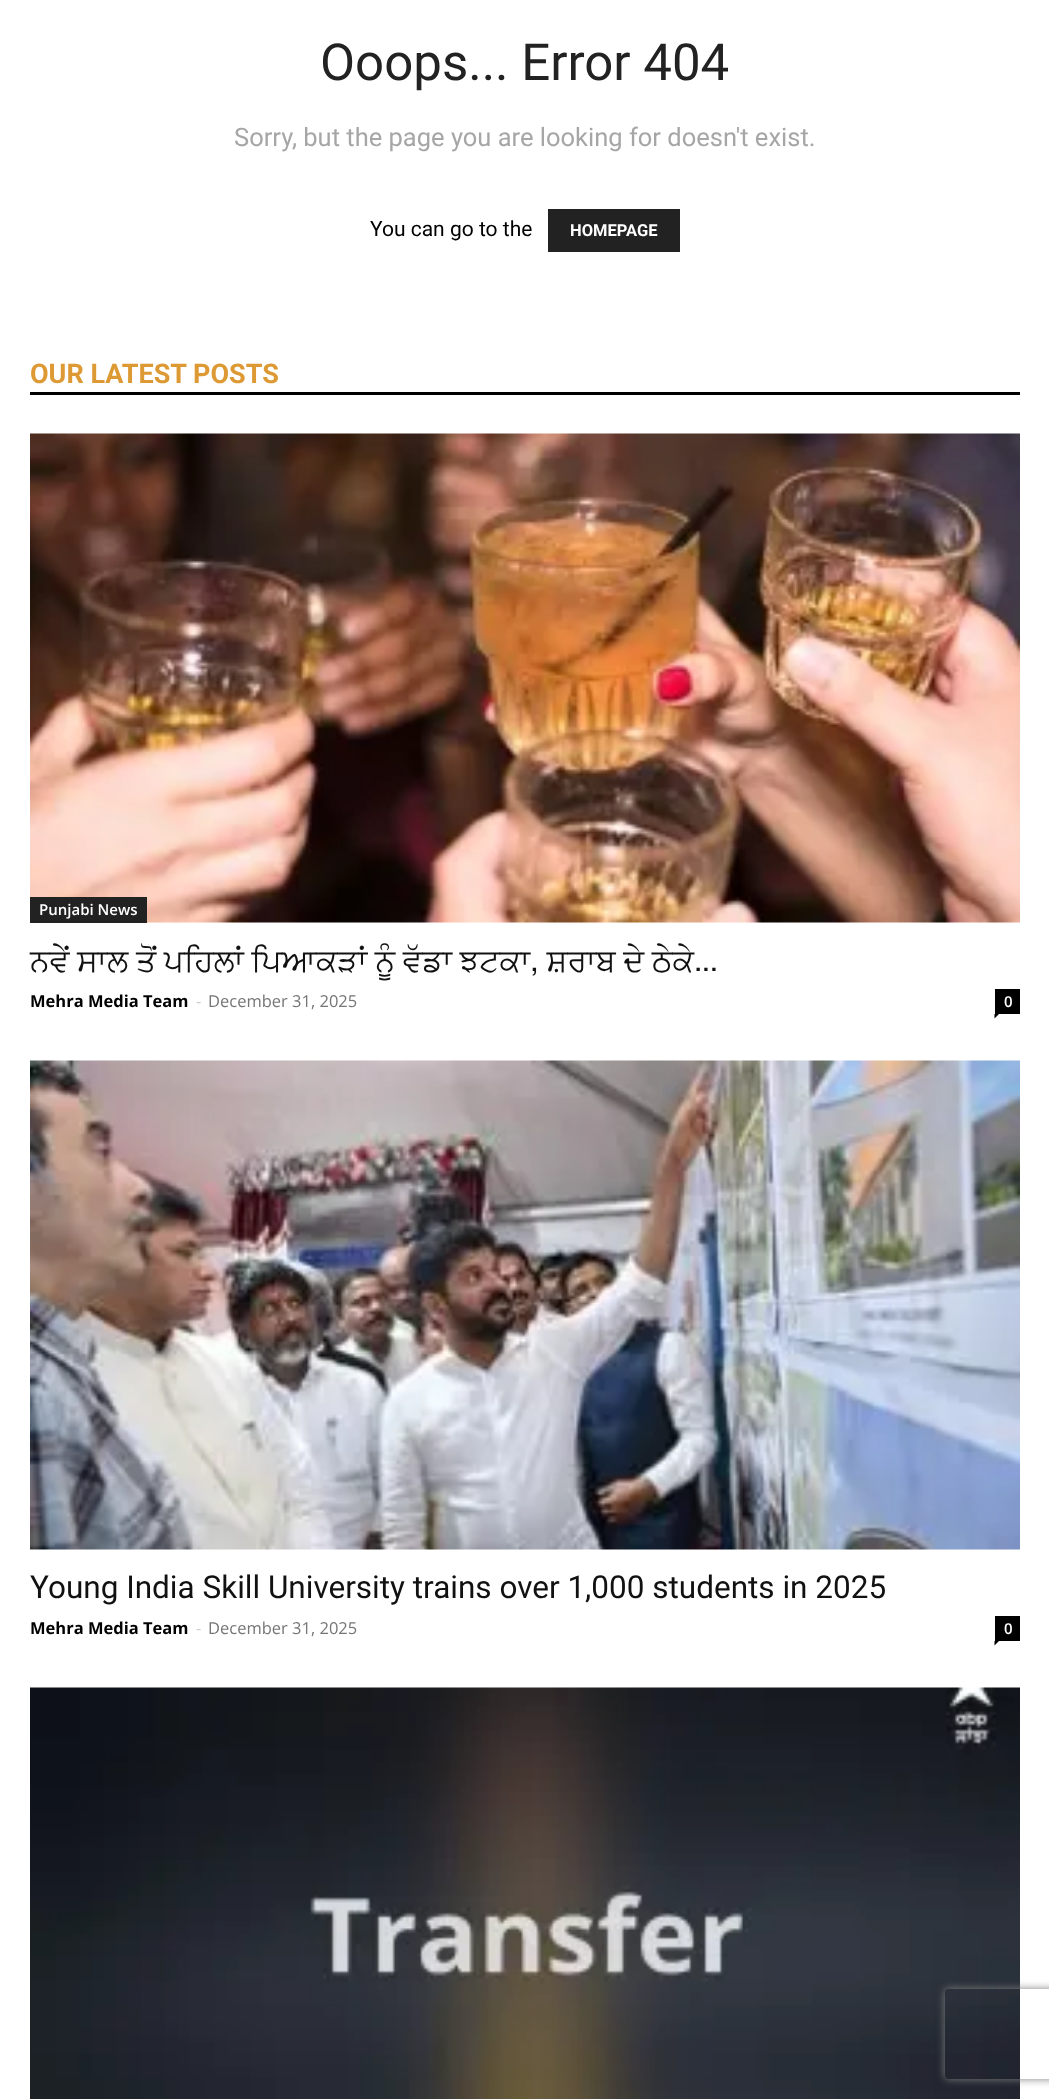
<svg xmlns="http://www.w3.org/2000/svg" width="1049" height="2099" viewBox="0 0 1049 2099">
  <defs>
    <clipPath id="clip1"><path d="M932 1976H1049V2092H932ZM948 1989H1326C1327.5 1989 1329 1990.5 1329 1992V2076C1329 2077.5 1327.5 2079 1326 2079H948C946.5 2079 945 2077.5 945 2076V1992C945 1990.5 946.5 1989 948 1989Z" clip-rule="evenodd"/></clipPath>
  </defs>
  <rect width="100%" height="100%" fill="rgb(255,255,255)"/>
  <text x="320" y="80" font-family="Roboto" font-size="51" fill="rgb(34,34,34)">Ooops... Error 404</text>
  <text x="234" y="146" font-family="Roboto" font-size="25.5" fill="rgb(166,166,166)">Sorry, but the page you are looking for doesn't exist.</text>
  <text x="370" y="236" font-family="Roboto" font-size="21" fill="rgb(0,0,0)">You can go to the</text>
  <rect x="548" y="209" width="132" height="43" fill="rgb(34,34,34)"/>
  <text x="570" y="236" font-family="Roboto" font-size="16.5" font-weight="bold" fill="rgb(255,255,255)">HOMEPAGE</text>
  <rect x="30" y="392" width="990" height="3" fill="rgb(0,0,0)"/>
  <text x="30" y="383" font-family="Roboto" font-size="27" font-weight="bold" fill="rgb(221,153,51)">OUR LATEST POSTS</text>
  <image x="30" y="433" width="990" height="490" href="pic1.png"/>
  <rect x="30" y="897" width="117" height="26" fill="rgb(34,34,34)"/>
  <text x="39" y="915" font-family="Open Sans" font-size="15" font-weight="600" fill="rgb(255,255,255)">Punjabi News</text>
  <text x="30" y="971" word-spacing="-0.25" font-family="FreeSans" font-size="31.5" fill="rgb(17,17,17)">ਨਵੇਂ ਸਾਲ ਤੋਂ ਪਹਿਲਾਂ ਪਿਆਕੜਾਂ ਨੂੰ ਵੱਡਾ ਝਟਕਾ, ਸ਼ਰਾਬ ਦੇ ਠੇਕੇ...</text>
  <text x="30" y="1007" font-family="Open Sans" font-size="16.5" font-weight="bold" fill="rgb(0,0,0)">Mehra Media Team</text>
  <text x="196" y="1007" font-family="Open Sans" font-size="16.5" fill="rgb(204,204,204)">-</text>
  <text x="208" y="1007" font-family="Open Sans" font-size="16.5" fill="rgb(118,118,118)">December 31, 2025</text>
  <rect x="995" y="989" width="25" height="25" fill="rgb(0,0,0)"/>
  <text x="1004" y="1007" font-family="Open Sans" font-size="15" font-weight="600" fill="rgb(255,255,255)">0</text>
  <path d="M994.5 1014H999L994.5 1018.5Z" fill="rgb(0,0,0)"/>
  <image x="30" y="1060" width="990" height="490" href="pic2.png"/>
  <text x="30" y="1598" font-family="Roboto" font-size="31.5" fill="rgb(17,17,17)">Young India Skill University trains over 1,000 students in 2025</text>
  <text x="30" y="1634" font-family="Open Sans" font-size="16.5" font-weight="bold" fill="rgb(0,0,0)">Mehra Media Team</text>
  <text x="196" y="1634" font-family="Open Sans" font-size="16.5" fill="rgb(204,204,204)">-</text>
  <text x="208" y="1634" font-family="Open Sans" font-size="16.5" fill="rgb(118,118,118)">December 31, 2025</text>
  <rect x="995" y="1616" width="25" height="25" fill="rgb(0,0,0)"/>
  <text x="1004" y="1634" font-family="Open Sans" font-size="15" font-weight="600" fill="rgb(255,255,255)">0</text>
  <path d="M994.5 1641H999L994.5 1645.5Z" fill="rgb(0,0,0)"/>
  <image x="30" y="1687" width="990" height="412" href="pic3.png"/>
  <g clip-path="url(#clip1)">
    <rect x="945" y="1989" width="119" height="90" rx="3" fill="rgb(128,128,128)" filter="blur(4px)"/>
  </g>
</svg>
